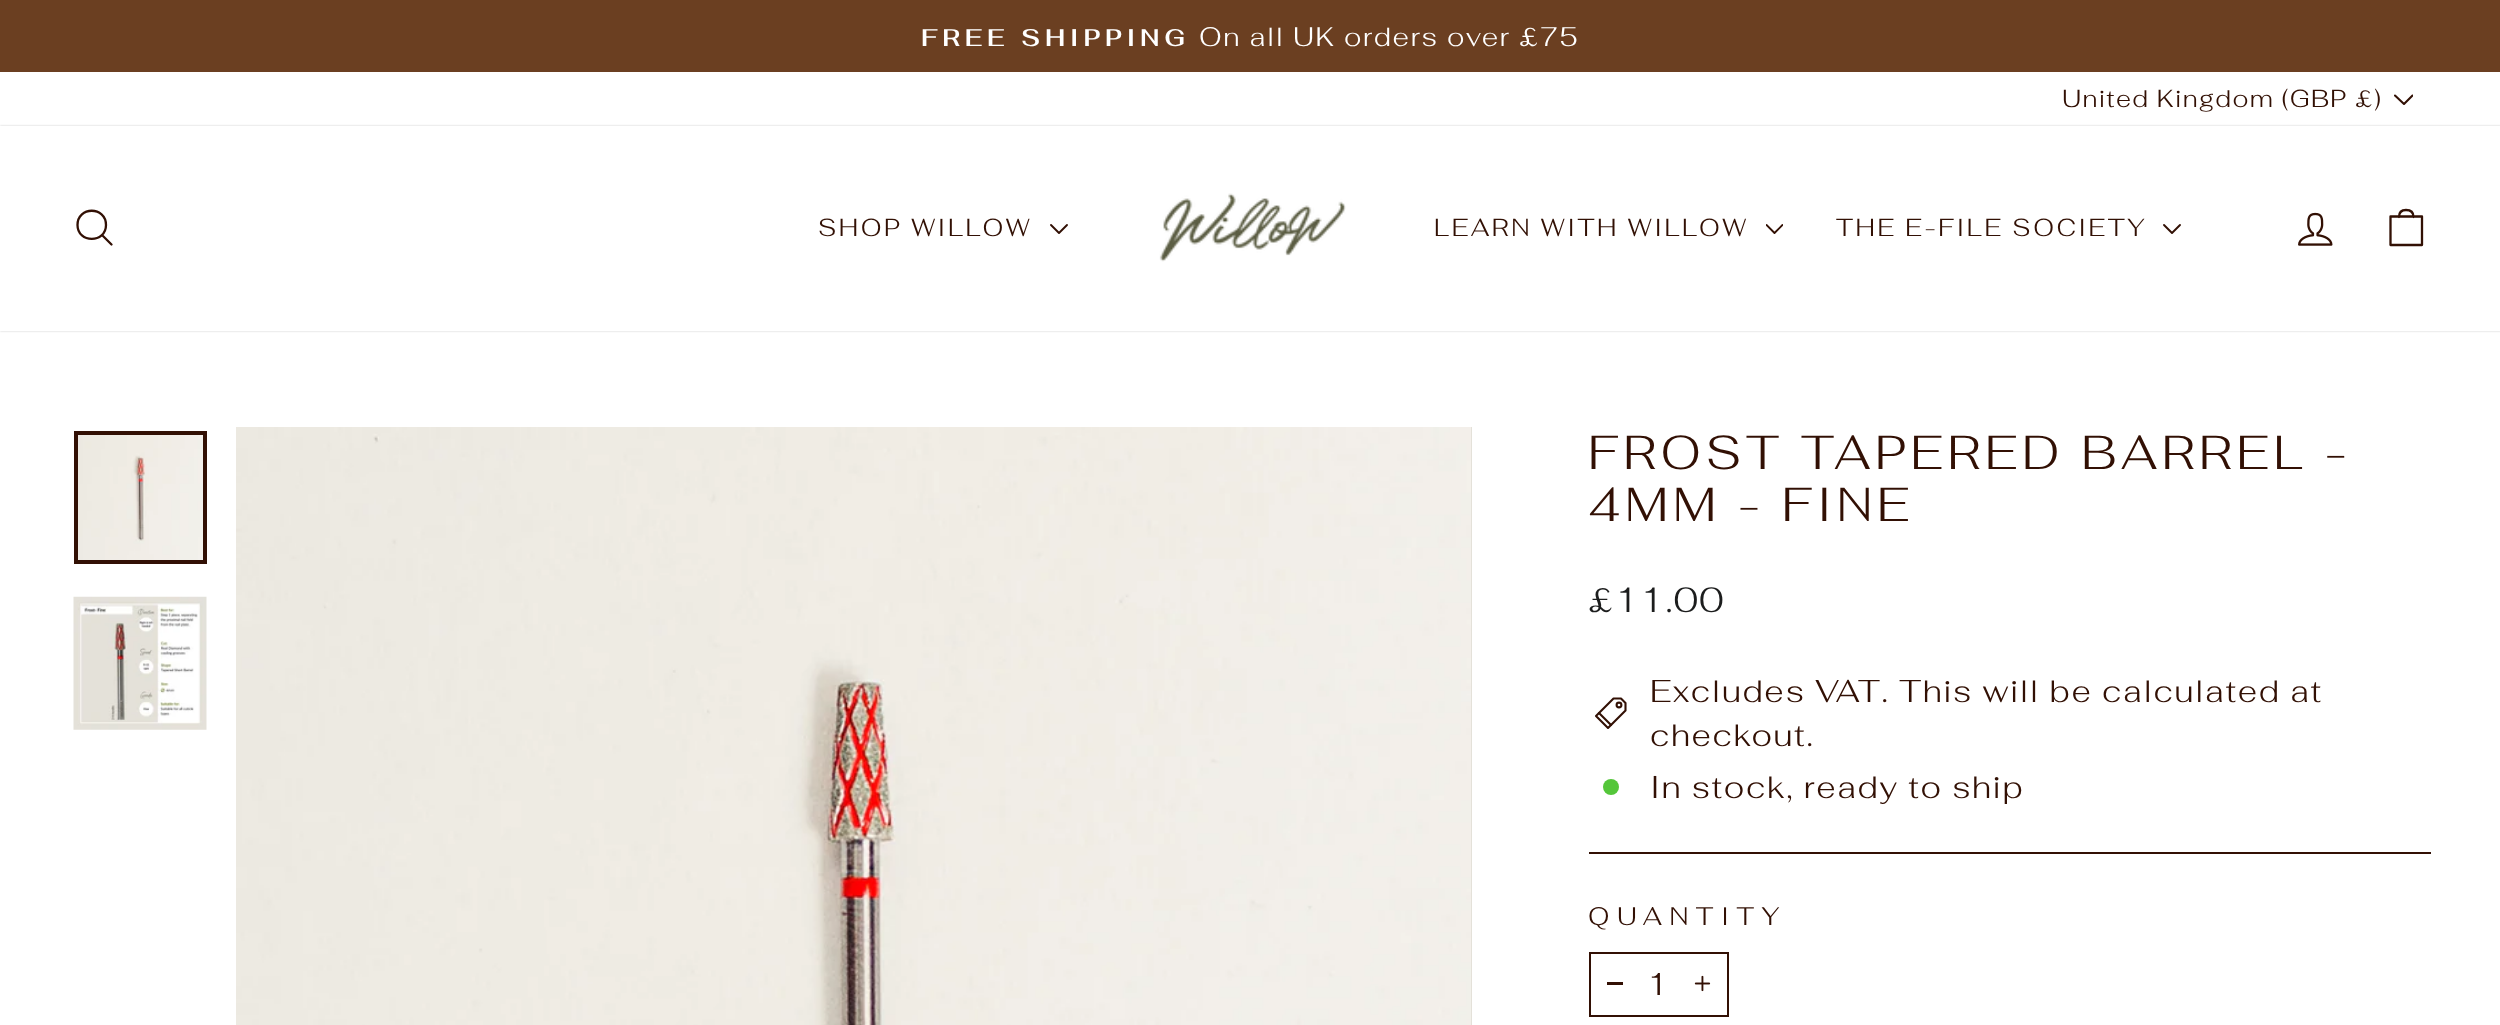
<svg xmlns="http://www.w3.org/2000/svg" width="2500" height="1025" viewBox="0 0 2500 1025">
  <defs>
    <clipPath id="clip1"><rect x="2394" y="91" width="19" height="19"/></clipPath>
    <clipPath id="clip2"><rect x="1766" y="221" width="17" height="17"/></clipPath>
  </defs>
  <rect width="100%" height="100%" fill="rgb(255,255,255)"/>
  <rect x="0" y="0" width="2500" height="72" fill="rgb(107,63,33)"/>
  <text x="921" y="46" font-family="Fahkwang" font-size="24.1" font-weight="600" letter-spacing="4.75" fill="rgb(255,255,255)">FREE SHIPPING</text>
  <text x="1199" y="46" font-family="Fahkwang" font-size="26.75" font-weight="300" letter-spacing="1.55" fill="rgb(255,255,255)">On all UK orders over £75</text>
  <text x="2062" y="107" font-family="Fahkwang" font-size="24.5" font-weight="300" letter-spacing="1.25" fill="rgb(50,16,4)">United Kingdom (GBP £)</text>
  <g clip-path="url(#clip1)">
    <path d="M2395 95.5L2404 104L2412.5 95.5" fill="none" stroke="rgb(50,16,4)" stroke-width="2.1" stroke-linecap="round" stroke-linejoin="round"/>
  </g>
  <rect x="0" y="126" width="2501" height="205" fill="rgba(0,0,0,0.2)" filter="blur(1px)"/>
  <rect x="0" y="126" width="2500" height="205" fill="rgb(255,255,255)"/>
  <path d="M106 225C106 243.5 77.5 243.5 77.5 225C77.5 206 106 206 106 225ZM111.5 244.5L102 235" fill="none" stroke="rgb(50,16,4)" stroke-width="2.3" stroke-linecap="round" stroke-linejoin="round"/>
  <text x="818" y="236" font-family="Fahkwang" font-size="24.5" font-weight="300" letter-spacing="2.5" fill="rgb(50,16,4)">SHOP WILLOW</text>
  <path d="M1051 225L1059 233L1067 225" fill="none" stroke="rgb(50,16,4)" stroke-width="1.9" stroke-linecap="round" stroke-linejoin="round"/>
  <image x="1159" y="193" width="187" height="69" href="pic1.png"/>
  <text x="1434" y="236" font-family="Fahkwang" font-size="24.5" font-weight="300" letter-spacing="2.5" fill="rgb(50,16,4)">LEARN WITH WILLOW</text>
  <g clip-path="url(#clip2)">
    <path d="M1766.5 225L1774.5 233L1782.5 225" fill="none" stroke="rgb(50,16,4)" stroke-width="1.9" stroke-linecap="round" stroke-linejoin="round"/>
  </g>
  <text x="1836" y="236" font-family="Fahkwang" font-size="24.5" font-weight="300" letter-spacing="2.5" fill="rgb(50,16,4)">THE E-FILE SOCIETY</text>
  <path d="M2164 225L2172 233L2180 225" fill="none" stroke="rgb(50,16,4)" stroke-width="1.9" stroke-linecap="round" stroke-linejoin="round"/>
  <image x="2298" y="212" width="35" height="34" href="pic2.png"/>
  <path d="M2390.5 216.5H2422V245H2390.5ZM2399 217C2399 211.5 2402 210 2406 210C2410.5 210 2413.5 211.5 2413.5 217" fill="none" stroke="rgb(50,16,4)" stroke-width="2.3" stroke-linecap="round" stroke-linejoin="round"/>
  <image x="78" y="435" width="125" height="125" href="pic3.png"/>
  <rect x="76" y="433" width="129" height="129" fill="none" stroke="rgb(50,16,4)" stroke-width="4"/>
  <image x="73" y="596" width="134" height="134" href="pic4.png"/>
  <image x="236" y="427" width="1235" height="598" href="pic5.png"/>
  <rect x="1471" y="427" width="1" height="598" fill="rgb(228,225,217)"/>
  <g font-family="Fahkwang" font-size="47.6" font-weight="300" letter-spacing="4.75" fill="rgb(50,16,4)">
    <text>
      <tspan x="1588" y="469">FROST TAPERED BARREL -</tspan>
      <tspan x="1588" y="521">4MM - FINE</tspan>
    </text>
  </g>
  <text x="1588" y="612" font-family="Fahkwang" font-size="35" font-weight="300" letter-spacing="1.55" fill="rgb(28,29,29)">£11.00</text>
  <path d="M1621 698.5H1613.5L1596 716L1608 728L1625.5 710.5V703Z" fill="none" stroke="rgb(50,16,4)" stroke-width="2.1" stroke-linecap="round" stroke-linejoin="round"/>
  <circle cx="1619" cy="705" r="2.4" fill="none" stroke="rgb(50,16,4)" stroke-width="2.1"/>
  <path d="M1599 713L1611 725" fill="none" stroke="rgb(50,16,4)" stroke-width="2.1" stroke-linecap="round" stroke-linejoin="round"/>
  <g font-family="Fahkwang" font-size="31.5" font-weight="300" letter-spacing="1.55" fill="rgb(50,16,4)">
    <text>
      <tspan x="1650" y="702">Excludes VAT. This will be calculated at</tspan>
      <tspan x="1650" y="746">checkout.</tspan>
    </text>
  </g>
  <circle cx="1611" cy="787" r="8" fill="rgb(84,198,58)"/>
  <text x="1650" y="798" font-family="Fahkwang" font-size="31.5" font-weight="300" letter-spacing="1.55" fill="rgb(50,16,4)">In stock, ready to ship</text>
  <rect x="1589" y="852" width="842" height="2" fill="rgb(50,16,4)"/>
  <text x="1588" y="925" font-family="Fahkwang" font-size="25.25" font-weight="300" letter-spacing="7.5" fill="rgb(50,16,4)">QUANTITY</text>
  <rect x="1590" y="953" width="138" height="63" fill="none" stroke="rgb(50,16,4)" stroke-width="2"/>
  <rect x="1607" y="982" width="16" height="3" fill="rgb(50,16,4)"/>
  <text x="1647" y="995" font-family="Fahkwang" font-size="31.5" font-weight="300" letter-spacing="1.55" fill="rgb(50,16,4)">1</text>
  <image x="1694" y="975" width="17" height="17" href="pic6.png"/>
</svg>
